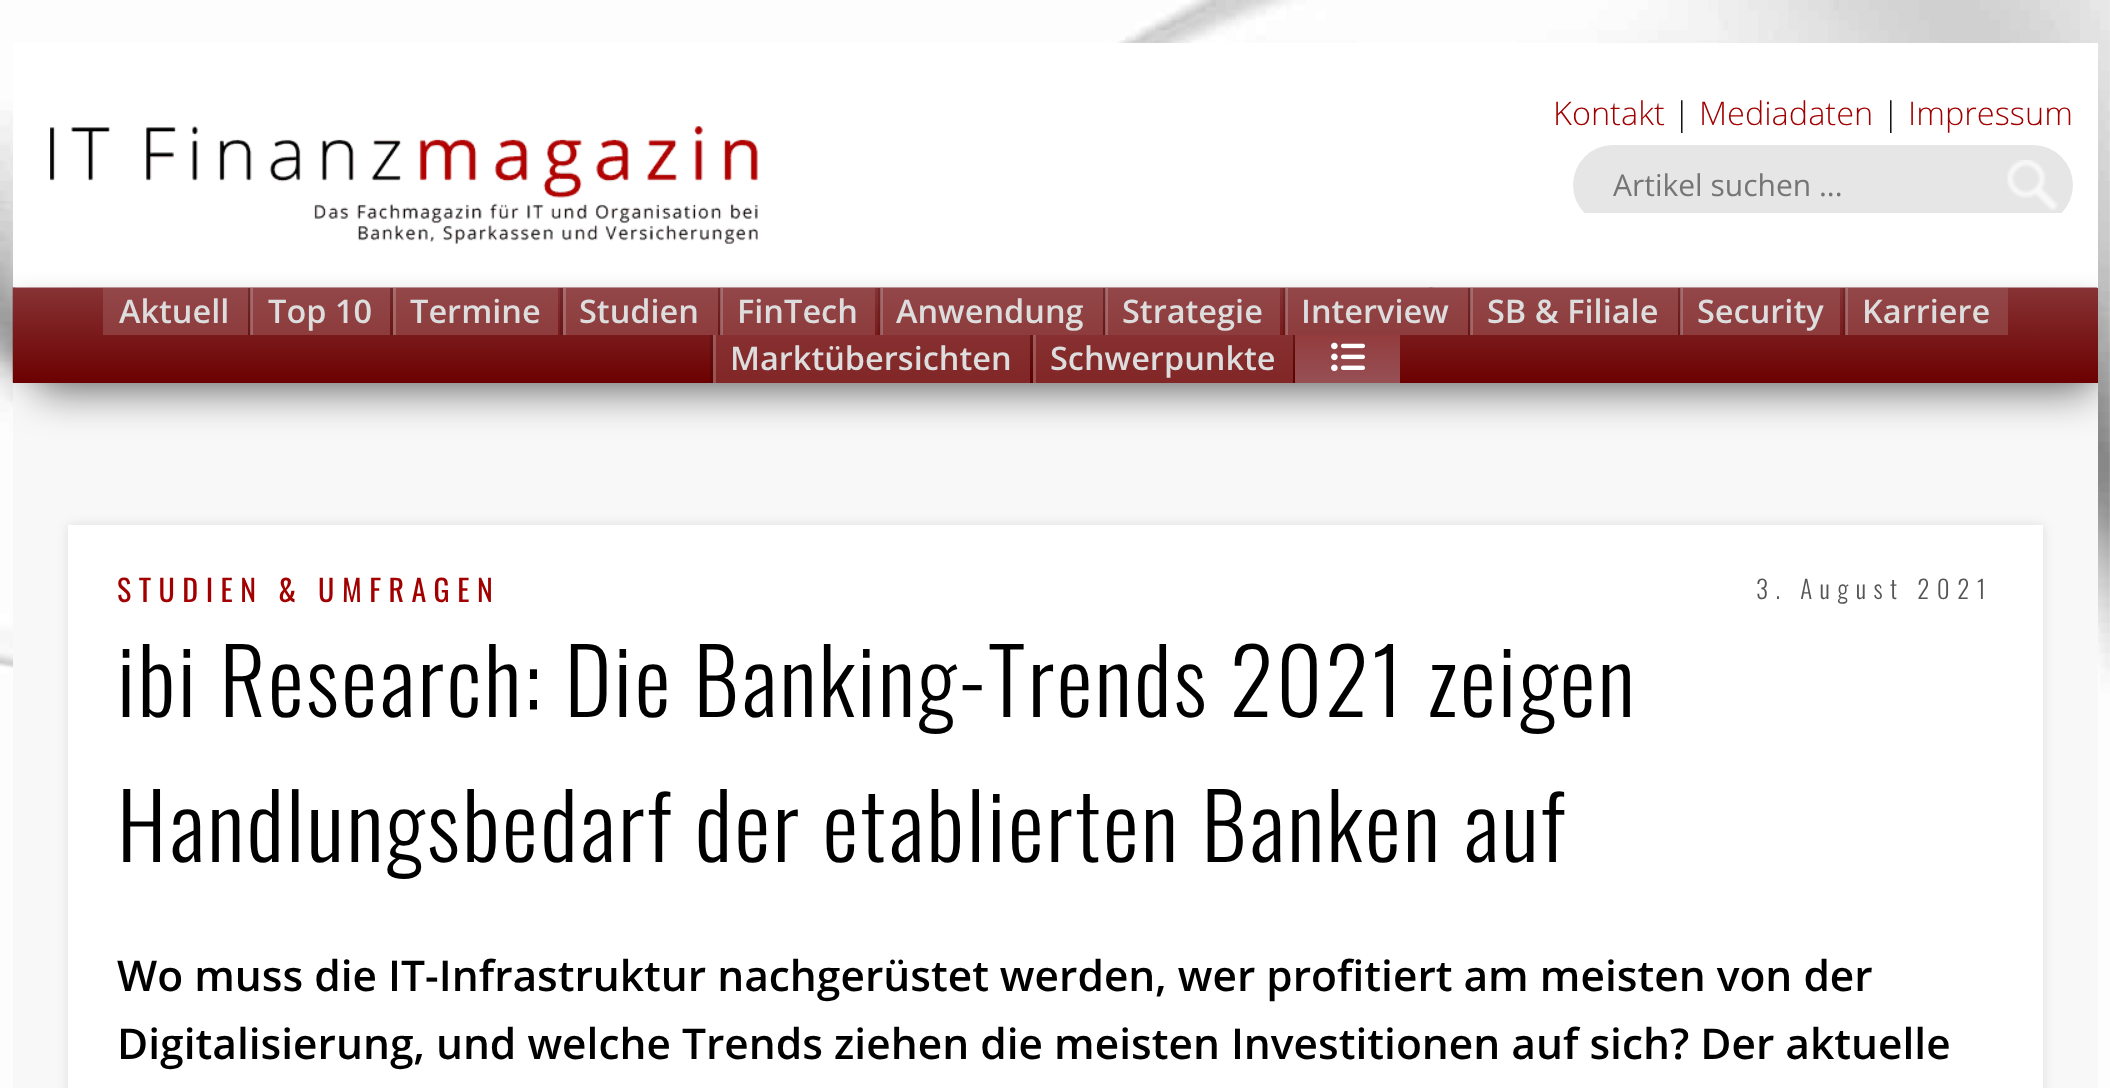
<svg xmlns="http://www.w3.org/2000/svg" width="2110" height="1088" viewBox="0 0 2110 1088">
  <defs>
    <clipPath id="clip1"><rect x="1273" y="63" width="825" height="150"/></clipPath>
    <clipPath id="clip2"><rect x="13" y="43" width="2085" height="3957"/></clipPath>
    <linearGradient id="g1" gradientUnits="userSpaceOnUse" x1="1055" y1="287" x2="1055" y2="383"><stop offset="0" stop-color="rgb(135,51,53)"/><stop offset="1" stop-color="rgb(108,0,0)"/></linearGradient>
    <linearGradient id="g2" gradientUnits="userSpaceOnUse" x1="175" y1="288" x2="175" y2="335"><stop offset="0" stop-color="rgb(255,255,255)" stop-opacity="0.1"/><stop offset="1" stop-color="rgb(255,255,255)" stop-opacity="0.15"/></linearGradient>
    <linearGradient id="g3" gradientUnits="userSpaceOnUse" x1="320" y1="288" x2="320" y2="335"><stop offset="0" stop-color="rgb(255,255,255)" stop-opacity="0.1"/><stop offset="1" stop-color="rgb(255,255,255)" stop-opacity="0.15"/></linearGradient>
    <linearGradient id="g4" gradientUnits="userSpaceOnUse" x1="475" y1="288" x2="475" y2="335"><stop offset="0" stop-color="rgb(255,255,255)" stop-opacity="0.1"/><stop offset="1" stop-color="rgb(255,255,255)" stop-opacity="0.15"/></linearGradient>
    <linearGradient id="g5" gradientUnits="userSpaceOnUse" x1="640" y1="288" x2="640" y2="335"><stop offset="0" stop-color="rgb(255,255,255)" stop-opacity="0.1"/><stop offset="1" stop-color="rgb(255,255,255)" stop-opacity="0.15"/></linearGradient>
    <linearGradient id="g6" gradientUnits="userSpaceOnUse" x1="798" y1="288" x2="798" y2="335"><stop offset="0" stop-color="rgb(255,255,255)" stop-opacity="0.1"/><stop offset="1" stop-color="rgb(255,255,255)" stop-opacity="0.15"/></linearGradient>
    <linearGradient id="g7" gradientUnits="userSpaceOnUse" x1="991" y1="288" x2="991" y2="335"><stop offset="0" stop-color="rgb(255,255,255)" stop-opacity="0.1"/><stop offset="1" stop-color="rgb(255,255,255)" stop-opacity="0.15"/></linearGradient>
    <linearGradient id="g8" gradientUnits="userSpaceOnUse" x1="1193" y1="288" x2="1193" y2="335"><stop offset="0" stop-color="rgb(255,255,255)" stop-opacity="0.1"/><stop offset="1" stop-color="rgb(255,255,255)" stop-opacity="0.15"/></linearGradient>
    <linearGradient id="g9" gradientUnits="userSpaceOnUse" x1="1376" y1="288" x2="1376" y2="335"><stop offset="0" stop-color="rgb(255,255,255)" stop-opacity="0.1"/><stop offset="1" stop-color="rgb(255,255,255)" stop-opacity="0.15"/></linearGradient>
    <linearGradient id="g10" gradientUnits="userSpaceOnUse" x1="1574" y1="288" x2="1574" y2="335"><stop offset="0" stop-color="rgb(255,255,255)" stop-opacity="0.1"/><stop offset="1" stop-color="rgb(255,255,255)" stop-opacity="0.15"/></linearGradient>
    <linearGradient id="g11" gradientUnits="userSpaceOnUse" x1="1760" y1="288" x2="1760" y2="335"><stop offset="0" stop-color="rgb(255,255,255)" stop-opacity="0.1"/><stop offset="1" stop-color="rgb(255,255,255)" stop-opacity="0.15"/></linearGradient>
    <linearGradient id="g12" gradientUnits="userSpaceOnUse" x1="1926" y1="288" x2="1926" y2="335"><stop offset="0" stop-color="rgb(255,255,255)" stop-opacity="0.1"/><stop offset="1" stop-color="rgb(255,255,255)" stop-opacity="0.15"/></linearGradient>
    <linearGradient id="g13" gradientUnits="userSpaceOnUse" x1="871" y1="335" x2="871" y2="383"><stop offset="0" stop-color="rgb(255,255,255)" stop-opacity="0.1"/><stop offset="1" stop-color="rgb(255,255,255)" stop-opacity="0.15"/></linearGradient>
    <linearGradient id="g14" gradientUnits="userSpaceOnUse" x1="1163" y1="335" x2="1163" y2="383"><stop offset="0" stop-color="rgb(255,255,255)" stop-opacity="0.1"/><stop offset="1" stop-color="rgb(255,255,255)" stop-opacity="0.15"/></linearGradient>
    <linearGradient id="g15" gradientUnits="userSpaceOnUse" x1="1348" y1="335" x2="1348" y2="383"><stop offset="0" stop-color="rgb(147,60,62)"/><stop offset="1" stop-color="rgb(150,80,84)"/></linearGradient>
  </defs>
  <rect width="100%" height="100%" fill="rgb(255,255,255)"/>
  <image x="0" y="0" width="2110" height="1088" href="pic1.png"/>
  <rect x="13" y="383" width="2085" height="705" fill="rgb(248,248,248)"/>
  <rect x="13" y="43" width="2085" height="245" fill="rgb(255,255,255)"/>
  <image x="50" y="126" width="708" height="118" href="pic2.png"/>
  <text x="1553" y="125" font-family="Open Sans" font-size="32.5" font-weight="300" fill="rgb(162,0,0)">Kontakt</text>
  <text x="1673" y="125" font-family="Open Sans" font-size="32.5" font-weight="300" fill="rgb(0,0,0)">|</text>
  <text x="1699" y="125" font-family="Open Sans" font-size="32.5" font-weight="300" fill="rgb(162,0,0)">Mediadaten</text>
  <text x="1882" y="125" font-family="Open Sans" font-size="32.5" font-weight="300" fill="rgb(0,0,0)">|</text>
  <text x="1908" y="125" font-family="Open Sans" font-size="32.5" font-weight="300" fill="rgb(162,0,0)">Impressum</text>
  <g clip-path="url(#clip1)">
    <rect x="1573" y="145" width="500" height="80" rx="40" fill="rgb(230,230,230)"/>
  </g>
  <image x="2007" y="160" width="51" height="50" href="pic3.png"/>
  <text x="1613" y="196" font-family="Open Sans" font-size="30" fill="rgb(117,117,117)">Artikel suchen ...</text>
  <g clip-path="url(#clip2)">
    <rect x="13" y="288" width="2085" height="95" fill="rgba(0,0,0,0.1)" filter="blur(9px)"/>
  </g>
  <image x="12" y="287" width="2086" height="96" href="pic4.png"/>
  <g clip-path="url(#clip2)">
    <rect x="38" y="328" width="2055" height="65" fill="rgba(0,0,0,0.5)" filter="blur(20px)"/>
  </g>
  <rect x="13" y="288" width="2085" height="95" fill="url(#g1)"/>
  <rect x="103" y="288" width="145" height="47" fill="url(#g2)"/>
  <text x="119" y="323" font-family="Open Sans" font-size="32.5" font-weight="600" fill="rgb(221,221,221)">Aktuell</text>
  <rect x="250" y="288" width="3" height="47" fill="rgba(255,255,255,0.2)"/>
  <rect x="248" y="288" width="3" height="47" fill="rgba(0,0,0,0.15)"/>
  <rect x="250" y="288" width="140" height="47" fill="url(#g3)"/>
  <text x="268" y="323" font-family="Open Sans" font-size="32.5" font-weight="600" fill="rgb(221,221,221)">Top 10</text>
  <rect x="393" y="288" width="3" height="47" fill="rgba(255,255,255,0.2)"/>
  <rect x="390" y="288" width="3" height="47" fill="rgba(0,0,0,0.15)"/>
  <rect x="393" y="288" width="165" height="47" fill="url(#g4)"/>
  <text x="410" y="323" font-family="Open Sans" font-size="32.5" font-weight="600" fill="rgb(221,221,221)">Termine</text>
  <rect x="563" y="288" width="3" height="47" fill="rgba(255,255,255,0.2)"/>
  <rect x="560" y="288" width="3" height="47" fill="rgba(0,0,0,0.15)"/>
  <rect x="563" y="288" width="155" height="47" fill="url(#g5)"/>
  <text x="579" y="323" font-family="Open Sans" font-size="32.5" font-weight="600" fill="rgb(221,221,221)">Studien</text>
  <rect x="720" y="288" width="3" height="47" fill="rgba(255,255,255,0.2)"/>
  <rect x="718" y="288" width="3" height="47" fill="rgba(0,0,0,0.15)"/>
  <rect x="720" y="288" width="155" height="47" fill="url(#g6)"/>
  <text x="737" y="323" font-family="Open Sans" font-size="32.5" font-weight="600" fill="rgb(221,221,221)">FinTech</text>
  <rect x="880" y="288" width="3" height="47" fill="rgba(255,255,255,0.2)"/>
  <rect x="878" y="288" width="3" height="47" fill="rgba(0,0,0,0.15)"/>
  <rect x="880" y="288" width="223" height="47" fill="url(#g7)"/>
  <text x="896" y="323" font-family="Open Sans" font-size="32.5" font-weight="600" fill="rgb(221,221,221)">Anwendung</text>
  <rect x="1105" y="288" width="3" height="47" fill="rgba(255,255,255,0.2)"/>
  <rect x="1103" y="288" width="3" height="47" fill="rgba(0,0,0,0.15)"/>
  <rect x="1105" y="288" width="175" height="47" fill="url(#g8)"/>
  <text x="1122" y="323" font-family="Open Sans" font-size="32.5" font-weight="600" fill="rgb(221,221,221)">Strategie</text>
  <rect x="1285" y="288" width="3" height="47" fill="rgba(255,255,255,0.2)"/>
  <rect x="1283" y="288" width="3" height="47" fill="rgba(0,0,0,0.15)"/>
  <rect x="1285" y="288" width="183" height="47" fill="url(#g9)"/>
  <text x="1301" y="323" font-family="Open Sans" font-size="32.5" font-weight="600" fill="rgb(221,221,221)">Interview</text>
  <rect x="1470" y="288" width="3" height="47" fill="rgba(255,255,255,0.2)"/>
  <rect x="1468" y="288" width="3" height="47" fill="rgba(0,0,0,0.15)"/>
  <rect x="1470" y="288" width="208" height="47" fill="url(#g10)"/>
  <text x="1487" y="323" font-family="Open Sans" font-size="32.5" font-weight="600" fill="rgb(221,221,221)">SB &amp; Filiale</text>
  <rect x="1680" y="288" width="3" height="47" fill="rgba(255,255,255,0.2)"/>
  <rect x="1678" y="288" width="3" height="47" fill="rgba(0,0,0,0.15)"/>
  <rect x="1680" y="288" width="160" height="47" fill="url(#g11)"/>
  <text x="1697" y="323" font-family="Open Sans" font-size="32.5" font-weight="600" fill="rgb(221,221,221)">Security</text>
  <rect x="1845" y="288" width="3" height="47" fill="rgba(255,255,255,0.2)"/>
  <rect x="1843" y="288" width="3" height="47" fill="rgba(0,0,0,0.15)"/>
  <rect x="1845" y="288" width="163" height="47" fill="url(#g12)"/>
  <text x="1862" y="323" font-family="Open Sans" font-size="32.5" font-weight="600" fill="rgb(221,221,221)">Karriere</text>
  <rect x="713" y="335" width="3" height="48" fill="rgba(255,255,255,0.2)"/>
  <rect x="710" y="335" width="3" height="48" fill="rgba(0,0,0,0.15)"/>
  <rect x="713" y="335" width="317" height="48" fill="url(#g13)"/>
  <text x="730" y="370" font-family="Open Sans" font-size="32.5" font-weight="600" fill="rgb(221,221,221)">Marktübersichten</text>
  <rect x="1033" y="335" width="3" height="48" fill="rgba(255,255,255,0.2)"/>
  <rect x="1030" y="335" width="3" height="48" fill="rgba(0,0,0,0.15)"/>
  <rect x="1033" y="335" width="260" height="48" fill="url(#g14)"/>
  <text x="1050" y="370" font-family="Open Sans" font-size="32.5" font-weight="600" fill="rgb(221,221,221)">Schwerpunkte</text>
  <rect x="1293" y="335" width="2" height="48" fill="rgba(0,0,0,0.15)"/>
  <rect x="1295" y="335" width="105" height="48" fill="url(#g15)"/>
  <image x="1331" y="342" width="34" height="30" href="pic5.png"/>
  <rect x="68" y="525" width="1975" height="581" fill="rgba(0,0,0,0.1)" filter="blur(6px)"/>
  <rect x="68" y="525" width="1975" height="563" fill="rgb(255,255,255)"/>
  <text x="117" y="602" font-family="Oswald" font-size="30" letter-spacing="7.5" fill="rgb(162,0,0)">STUDIEN &amp; UMFRAGEN</text>
  <text x="1756" y="599" font-family="Oswald" font-size="25" font-weight="300" letter-spacing="7.5" fill="rgb(85,85,85)">3. August 2021</text>
  <g font-family="Oswald" font-size="90" font-weight="300" letter-spacing="2.5" fill="rgb(0,0,0)">
    <text>
      <tspan x="117" y="717">ibi Research: Die Banking-Trends 2021 zeigen</tspan>
      <tspan x="117" y="862">Handlungsbedarf der etablierten Banken auf</tspan>
    </text>
  </g>
  <g font-family="Open Sans" font-size="42.5" font-weight="600" fill="rgb(0,0,0)">
    <text>
      <tspan x="117" y="991">Wo muss die IT-Infrastruktur nachgerüstet werden, wer profitiert am meisten von der</tspan>
      <tspan x="117" y="1059">Digitalisierung, und welche Trends ziehen die meisten Investitionen auf sich? Der aktuelle</tspan>
    </text>
  </g>
</svg>
